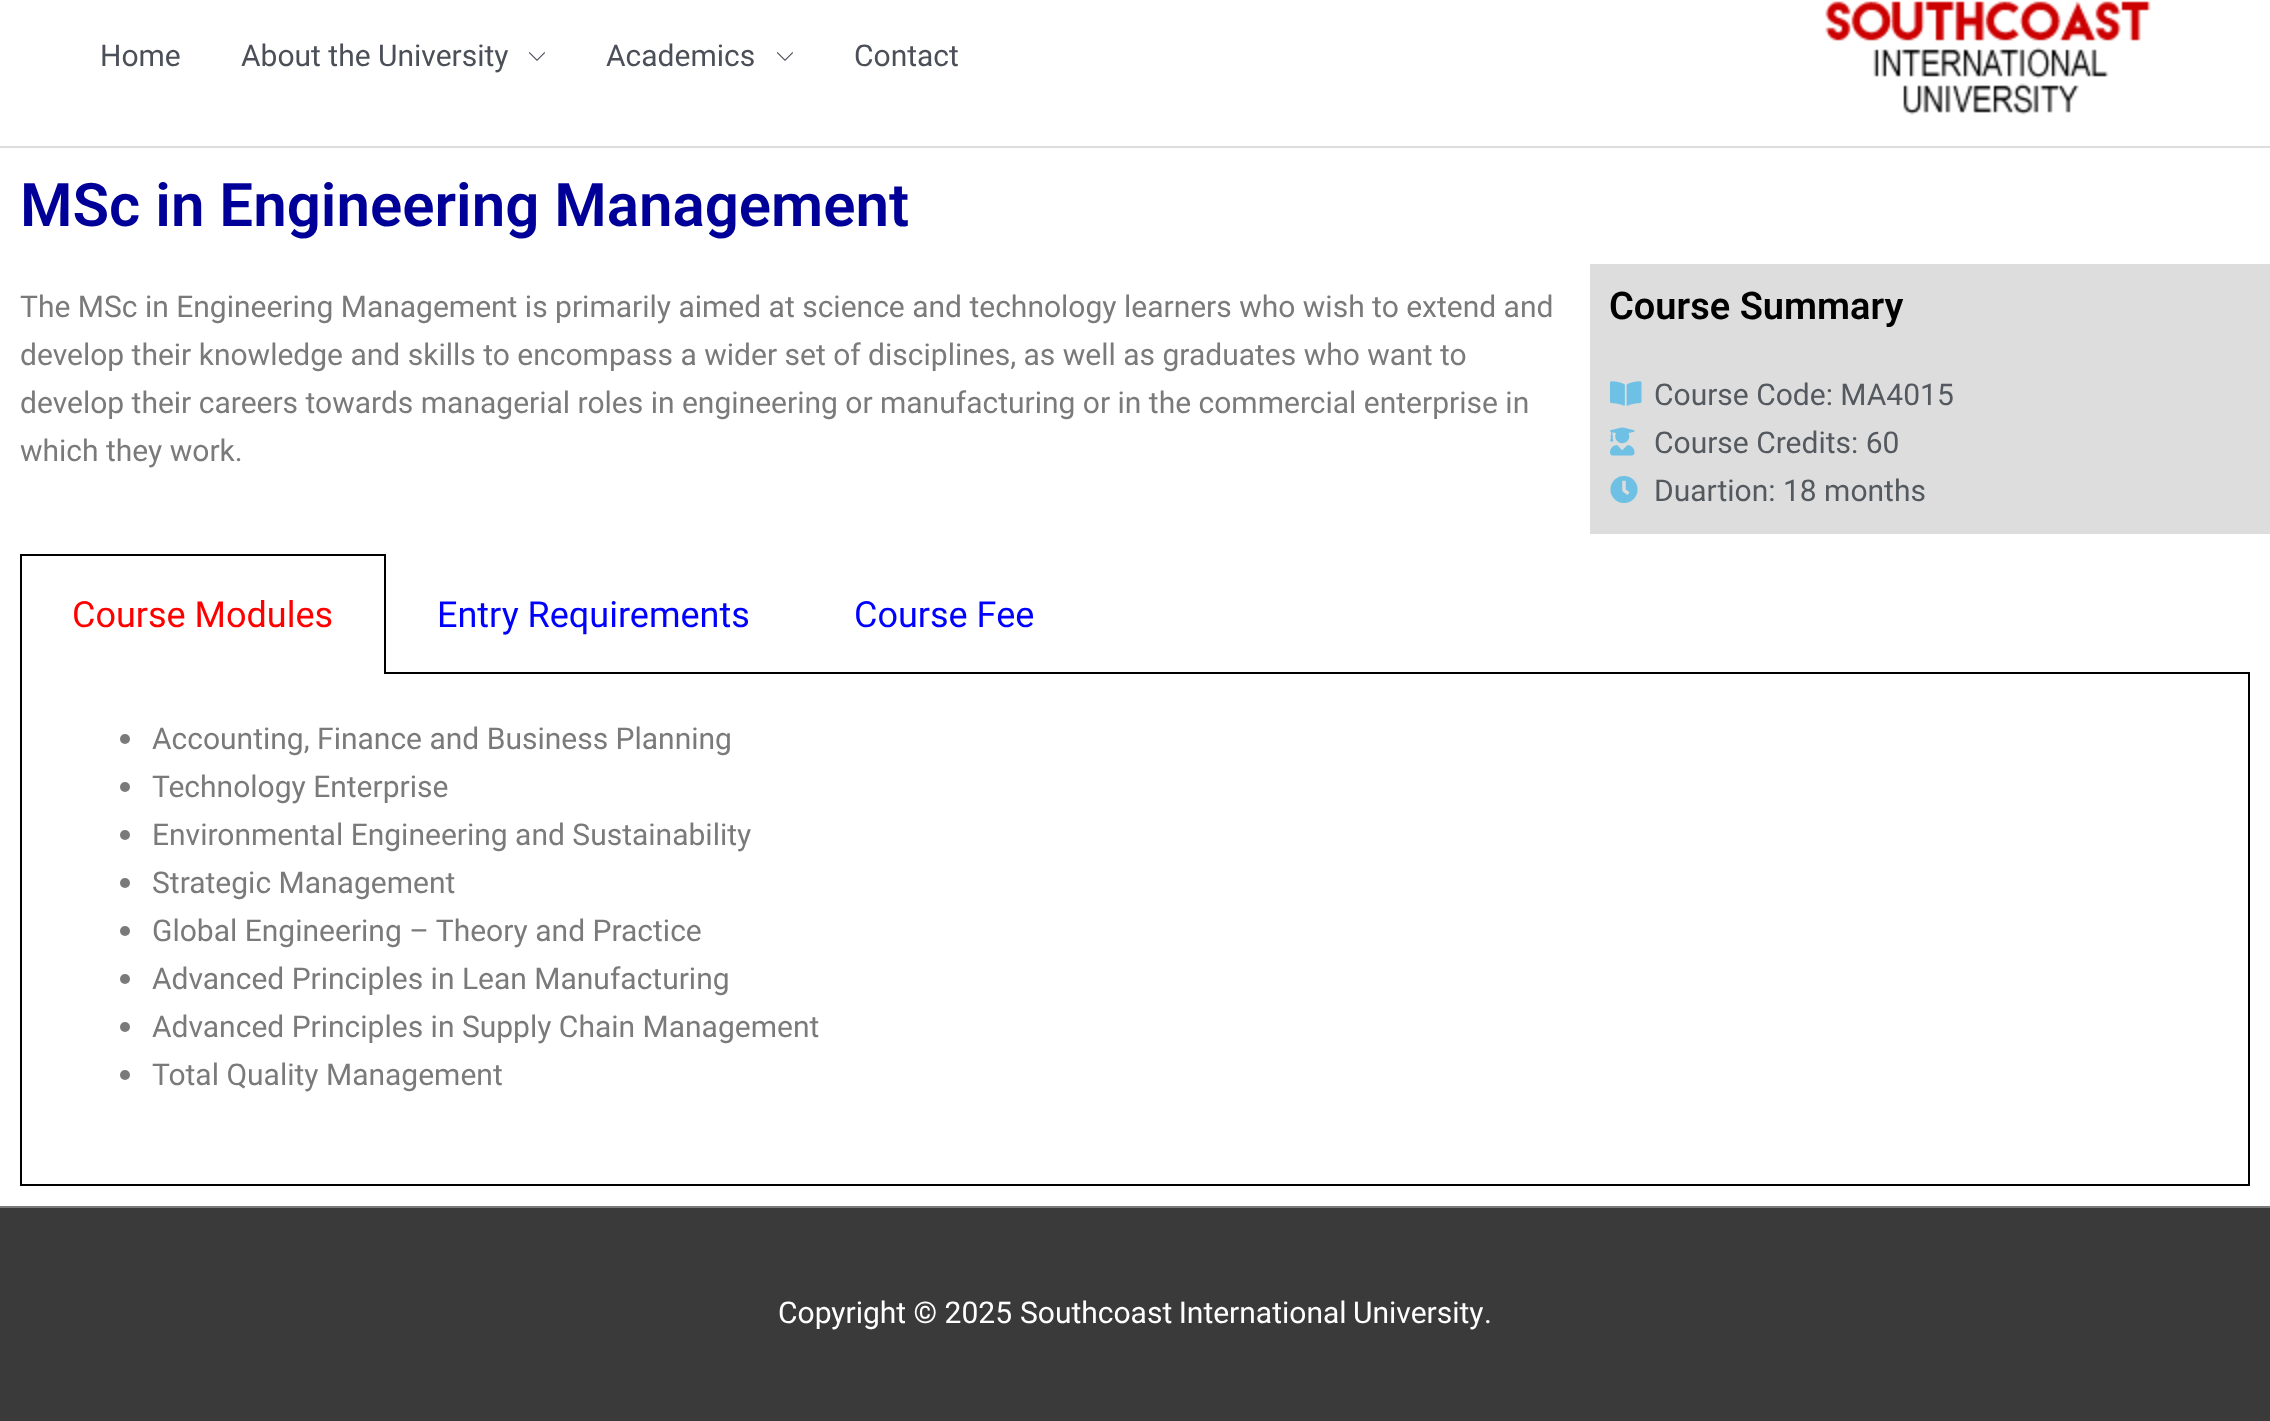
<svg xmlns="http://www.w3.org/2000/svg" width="2270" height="1421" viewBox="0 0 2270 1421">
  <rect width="100%" height="100%" fill="rgb(255,255,255)"/>
  <rect x="0" y="146" width="2270" height="2" fill="rgb(221,221,221)"/>
  <g font-family="Roboto" font-size="30" fill="rgb(75,79,88)">
    <text x="100" y="66">Home</text>
    <text x="241" y="66">About the University</text>
  </g>
  <image x="528" y="52" width="17" height="9" href="pic1.png"/>
  <text x="606" y="66" font-family="Roboto" font-size="30" fill="rgb(75,79,88)">Academics</text>
  <image x="776" y="52" width="17" height="9" href="pic1.png"/>
  <text x="854" y="66" font-family="Roboto" font-size="30" fill="rgb(75,79,88)">Contact</text>
  <image x="1825" y="1" width="326" height="114" href="pic2.png"/>
  <text x="20" y="226" font-family="Roboto" font-size="60" font-weight="600" fill="rgb(0,0,153)">MSc in Engineering Management</text>
  <g font-family="Roboto" font-size="30" fill="rgb(122,122,122)">
    <text>
      <tspan x="20" y="317">The MSc in Engineering Management is primarily aimed at science and technology learners who wish to extend and</tspan>
      <tspan x="20" y="365">develop their knowledge and skills to encompass a wider set of disciplines, as well as graduates who want to</tspan>
      <tspan x="20" y="413">develop their careers towards managerial roles in engineering or manufacturing or in the commercial enterprise in</tspan>
      <tspan x="20" y="461">which they work.</tspan>
    </text>
  </g>
  <rect x="1590" y="264" width="680" height="270" fill="rgb(221,221,221)"/>
  <text x="1609" y="319" font-family="Roboto" font-size="38" font-weight="600" fill="rgb(0,0,0)">Course Summary</text>
  <image x="1610" y="381" width="32" height="25" href="pic3.png"/>
  <text x="1654" y="405" font-family="Roboto" font-size="30" fill="rgb(84,89,95)">Course Code: MA4015</text>
  <image x="1610" y="427" width="25" height="29" href="pic4.png"/>
  <text x="1654" y="453" font-family="Roboto" font-size="30" fill="rgb(84,89,95)">Course Credits: 60</text>
  <image x="1610" y="476" width="28" height="27" href="pic5.png"/>
  <text x="1654" y="501" font-family="Roboto" font-size="30" fill="rgb(84,89,95)">Duartion: 18 months</text>
  <rect x="20" y="554" width="366" height="2" fill="rgb(0,0,0)"/>
  <rect x="384" y="554" width="2" height="120" fill="rgb(0,0,0)"/>
  <rect x="20" y="554" width="2" height="120" fill="rgb(0,0,0)"/>
  <text x="72" y="627" font-family="Roboto" font-size="36" fill="rgb(255,0,0)">Course Modules</text>
  <rect x="384" y="672" width="1866" height="2" fill="rgb(0,0,0)"/>
  <g font-family="Roboto" font-size="36" fill="rgb(0,0,255)">
    <text x="437" y="627">Entry Requirements</text>
    <text x="854" y="627">Course Fee</text>
  </g>
  <rect x="2248" y="674" width="2" height="512" fill="rgb(0,0,0)"/>
  <rect x="20" y="1184" width="2230" height="2" fill="rgb(0,0,0)"/>
  <rect x="20" y="674" width="2" height="512" fill="rgb(0,0,0)"/>
  <circle cx="125" cy="739" r="5" fill="rgb(122,122,122)"/>
  <text x="152" y="749" font-family="Roboto" font-size="30" fill="rgb(122,122,122)">Accounting, Finance and Business Planning</text>
  <circle cx="125" cy="787" r="5" fill="rgb(122,122,122)"/>
  <text x="152" y="797" font-family="Roboto" font-size="30" fill="rgb(122,122,122)">Technology Enterprise</text>
  <circle cx="125" cy="835" r="5" fill="rgb(122,122,122)"/>
  <text x="152" y="845" font-family="Roboto" font-size="30" fill="rgb(122,122,122)">Environmental Engineering and Sustainability</text>
  <circle cx="125" cy="883" r="5" fill="rgb(122,122,122)"/>
  <text x="152" y="893" font-family="Roboto" font-size="30" fill="rgb(122,122,122)">Strategic Management</text>
  <circle cx="125" cy="931" r="5" fill="rgb(122,122,122)"/>
  <text x="152" y="941" font-family="Roboto" font-size="30" fill="rgb(122,122,122)">Global Engineering – Theory and Practice</text>
  <circle cx="125" cy="979" r="5" fill="rgb(122,122,122)"/>
  <text x="152" y="989" font-family="Roboto" font-size="30" fill="rgb(122,122,122)">Advanced Principles in Lean Manufacturing</text>
  <circle cx="125" cy="1027" r="5" fill="rgb(122,122,122)"/>
  <text x="152" y="1037" font-family="Roboto" font-size="30" fill="rgb(122,122,122)">Advanced Principles in Supply Chain Management</text>
  <circle cx="125" cy="1075" r="5" fill="rgb(122,122,122)"/>
  <text x="152" y="1085" font-family="Roboto" font-size="30" fill="rgb(122,122,122)">Total Quality Management</text>
  <rect x="0" y="1206" width="2270" height="2" fill="rgb(122,122,122)"/>
  <rect x="0" y="1208" width="2270" height="213" fill="rgb(58,58,58)"/>
  <g font-family="Roboto" font-size="30" fill="rgb(255,255,255)">
    <text x="778" y="1323">Copyright © 2025</text>
    <text x="1020" y="1323" word-spacing="-1">Southcoast International University</text>
    <text x="1484" y="1323">.</text>
  </g>
</svg>
